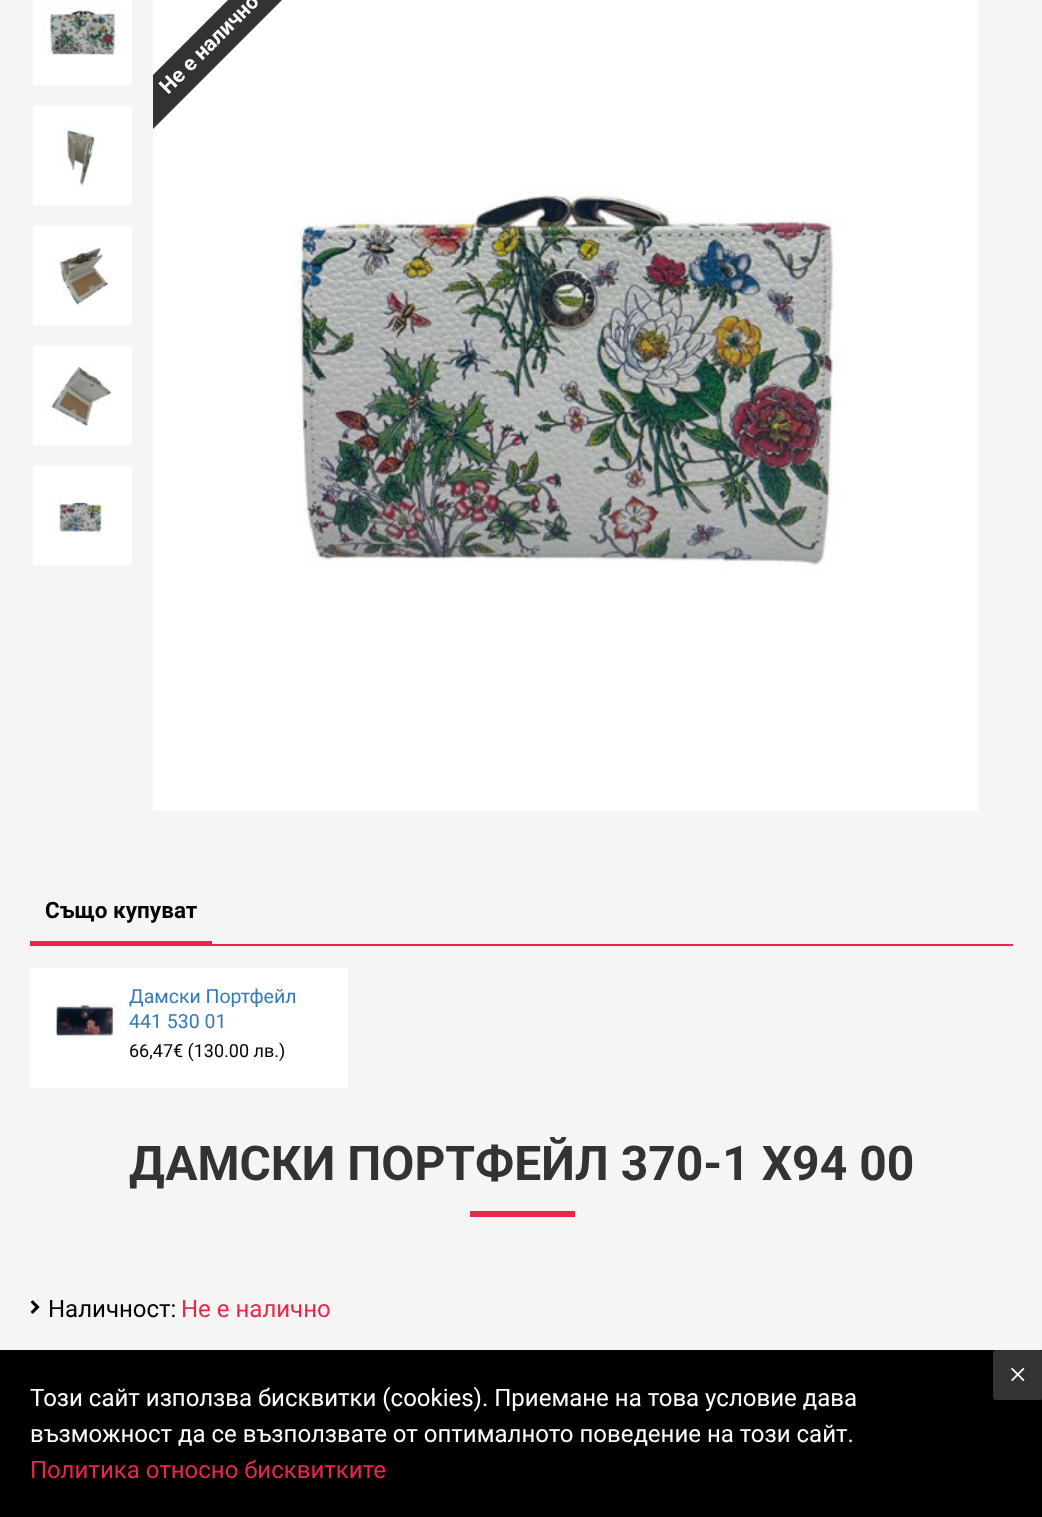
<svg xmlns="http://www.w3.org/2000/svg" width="1042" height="1517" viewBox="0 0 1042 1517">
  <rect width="100%" height="100%" fill="rgb(245,245,245)"/>
  <image x="33" y="0" width="99" height="85" href="pic1.png"/>
  <image x="33" y="106" width="99" height="99" href="pic2.png"/>
  <image x="33" y="226" width="99" height="99" href="pic3.png"/>
  <image x="33" y="346" width="99" height="99" href="pic4.png"/>
  <image x="33" y="466" width="99" height="99" href="pic5.png"/>
  <image x="153" y="0" width="825" height="811" href="pic6.png"/>
  <path d="M295-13L153 129V75L241-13Z" fill="rgb(51,51,51)"/>
  <text x="168" y="95" transform="rotate(-45 168 95)" font-family="Roboto" font-size="21" font-weight="bold" fill="rgb(255,255,255)">Не е налично</text>
  <rect x="30" y="944" width="983" height="2" fill="rgb(231,40,77)"/>
  <rect x="30" y="941" width="182" height="3" fill="rgb(231,40,77)"/>
  <text x="45" y="918" font-family="Roboto" font-size="22.5" font-weight="bold" fill="rgb(0,0,0)">Също купуват</text>
  <rect x="30" y="968" width="318" height="120" fill="rgb(255,255,255)"/>
  <image x="52" y="1001" width="71" height="36" href="pic7.png"/>
  <g font-family="Roboto" font-size="19.5" fill="rgb(51,122,183)">
    <text>
      <tspan x="129" y="1003">Дамски Портфейл</tspan>
      <tspan x="129" y="1028">441 530 01</tspan>
    </text>
  </g>
  <text x="129" y="1057" font-family="Roboto" font-size="18" fill="rgb(0,0,0)">66,47€ (130.00 лв.)</text>
  <text x="129" y="1180" font-family="Roboto" font-size="48" font-weight="bold" fill="rgb(51,51,51)">ДАМСКИ ПОРТФЕЙЛ 370-1 X94 00</text>
  <rect x="470" y="1211" width="105" height="6" fill="rgb(231,40,77)"/>
  <image x="30" y="1300" width="10" height="14" href="pic8.png"/>
  <text x="48" y="1317" font-family="Roboto" font-size="24" fill="rgb(0,0,0)">Наличност:</text>
  <text x="181" y="1317" font-family="Roboto" font-size="24" fill="rgb(231,40,77)">Не е налично</text>
  <rect x="0" y="1350" width="1042" height="167" fill="rgb(0,0,0)"/>
  <rect x="993" y="1350" width="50" height="50" rx="3" fill="rgb(51,51,51)"/>
  <image x="1011" y="1368" width="14" height="13" href="pic9.png"/>
  <g font-family="Roboto" font-size="24" fill="rgb(255,255,255)">
    <text>
      <tspan x="30" y="1406">Този сайт използва бисквитки (cookies). Приемане на това условие дава</tspan>
      <tspan x="30" y="1442">възможност да се възползвате от оптималното поведение на този сайт.</tspan>
    </text>
  </g>
  <text x="30" y="1478" font-family="Roboto" font-size="24" fill="rgb(231,40,77)">Политика относно бисквитките</text>
</svg>
